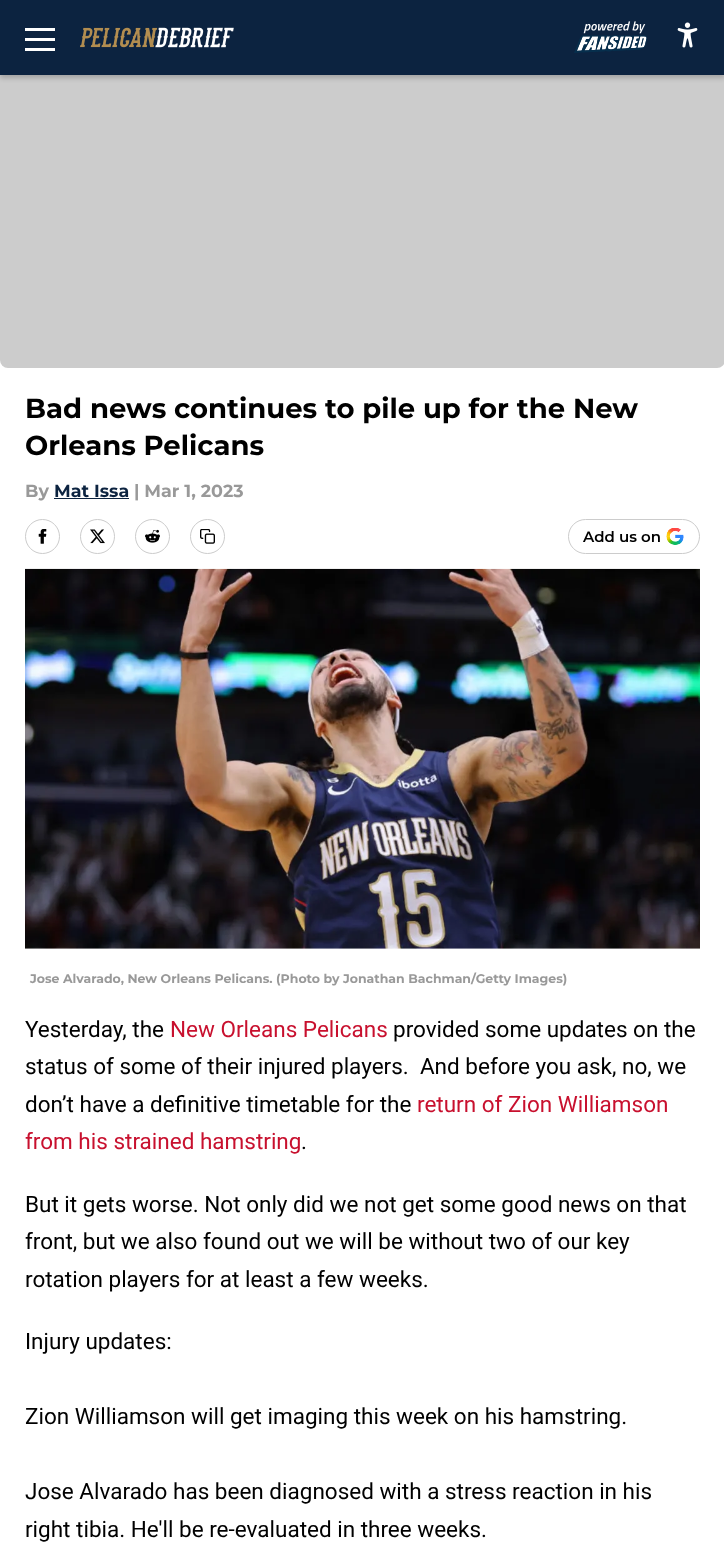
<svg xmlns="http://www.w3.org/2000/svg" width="724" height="1549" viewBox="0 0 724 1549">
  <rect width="100%" height="100%" fill="rgb(255,255,255)"/>
  <rect x="0" y="-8" width="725" height="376" rx="8" fill="rgb(204,204,204)"/>
  <rect x="0" y="3" width="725" height="75" fill="rgba(0,0,0,0.2)" filter="blur(2.5px)"/>
  <rect x="0" y="0" width="724" height="75" fill="rgb(12,35,64)"/>
  <rect x="25" y="28" width="30" height="3" fill="rgb(255,255,255)"/>
  <rect x="25" y="38" width="30" height="3" fill="rgb(255,255,255)"/>
  <rect x="25" y="48" width="30" height="3" fill="rgb(255,255,255)"/>
  <image x="80" y="27" width="154" height="21" href="pic1.png"/>
  <image x="574" y="21" width="73" height="32" href="pic2.png"/>
  <image x="677" y="22" width="21" height="26" href="pic3.png"/>
  <g font-family="'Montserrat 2'" font-size="27.5" font-weight="100" fill="rgb(0,0,0)">
    <text>
      <tspan x="25" y="418">Bad news continues to pile up for the New</tspan>
      <tspan x="25" y="455">Orleans Pelicans</tspan>
    </text>
  </g>
  <text x="25" y="497" font-family="'Montserrat 2'" font-size="17.5" font-weight="100" fill="rgb(153,153,153)">By</text>
  <text x="54" y="497" font-family="'Montserrat 2'" font-size="17.5" font-weight="100" fill="rgb(12,35,64)">Mat Issa</text>
  <rect x="54" y="498" width="75" height="1" fill="rgb(12,35,64)"/>
  <text x="134" y="497" font-family="'Montserrat 2'" font-size="17.5" font-weight="100" fill="rgb(153,153,153)">| Mar 1, 2023</text>
  <circle cx="42.5" cy="536.5" r="17" fill="none" stroke="rgb(204,204,204)"/>
  <image x="38" y="529" width="9" height="15" href="pic4.png"/>
  <circle cx="97.5" cy="536.5" r="17" fill="none" stroke="rgb(204,204,204)"/>
  <image x="90" y="529" width="15" height="15" href="pic5.png"/>
  <circle cx="152.5" cy="536.5" r="17" fill="none" stroke="rgb(204,204,204)"/>
  <image x="145" y="529" width="15" height="14" href="pic6.png"/>
  <circle cx="207.5" cy="536.5" r="17" fill="none" stroke="rgb(204,204,204)"/>
  <image x="200" y="529" width="15" height="15" href="pic7.png"/>
  <rect x="568.5" y="519.5" width="131" height="34" rx="17" fill="none" stroke="rgb(204,204,204)"/>
  <text x="583" y="542" font-family="Montserrat" font-size="15" font-weight="100" fill="rgb(0,0,0)">Add us on</text>
  <image x="666" y="528" width="18" height="17" href="pic8.png"/>
  <rect x="25" y="948" width="675" height="1" fill="rgb(247,247,247)"/>
  <image x="25" y="568" width="675" height="381" href="pic9.png"/>
  <text x="30" y="983" font-family="'Montserrat 2'" font-size="12.5" font-weight="100" fill="rgb(153,153,153)">Jose Alvarado, New Orleans Pelicans. (Photo by Jonathan Bachman/Getty Images)</text>
  <text x="25" y="1037" font-family="Roboto" font-size="22.5" fill="rgb(0,0,0)">Yesterday, the</text>
  <text x="170" y="1037" font-family="Roboto" font-size="22.5" fill="rgb(200,16,46)">New Orleans Pelicans</text>
  <g font-family="Roboto" font-size="22.5" fill="rgb(0,0,0)">
    <text x="393" y="1037">provided some updates on the</text>
    <text xml:space="preserve"><tspan x="25" y="1074">status of some of their injured players.  And before you ask, no, we</tspan><tspan x="25" y="1112">don’t have a definitive timetable for the</tspan></text>
  </g>
  <g font-family="Roboto" font-size="22.5" fill="rgb(200,16,46)">
    <text x="417" y="1112">return of Zion Williamson</text>
    <text x="25" y="1149">from his strained hamstring</text>
  </g>
  <g font-family="Roboto" font-size="22.5" fill="rgb(0,0,0)">
    <text x="301" y="1149">.</text>
    <text>
      <tspan x="25" y="1212">But it gets worse. Not only did we not get some good news on that</tspan>
      <tspan x="25" y="1249">front, but we also found out we will be without two of our key</tspan>
      <tspan x="25" y="1287">rotation players for at least a few weeks.</tspan>
    </text>
    <text x="25" y="1349">Injury updates:</text>
    <text x="25" y="1424">Zion Williamson will get imaging this week on his hamstring.</text>
    <text>
      <tspan x="25" y="1499">Jose Alvarado has been diagnosed with a stress reaction in his</tspan>
      <tspan x="25" y="1537">right tibia. He'll be re-evaluated in three weeks.</tspan>
    </text>
  </g>
</svg>
